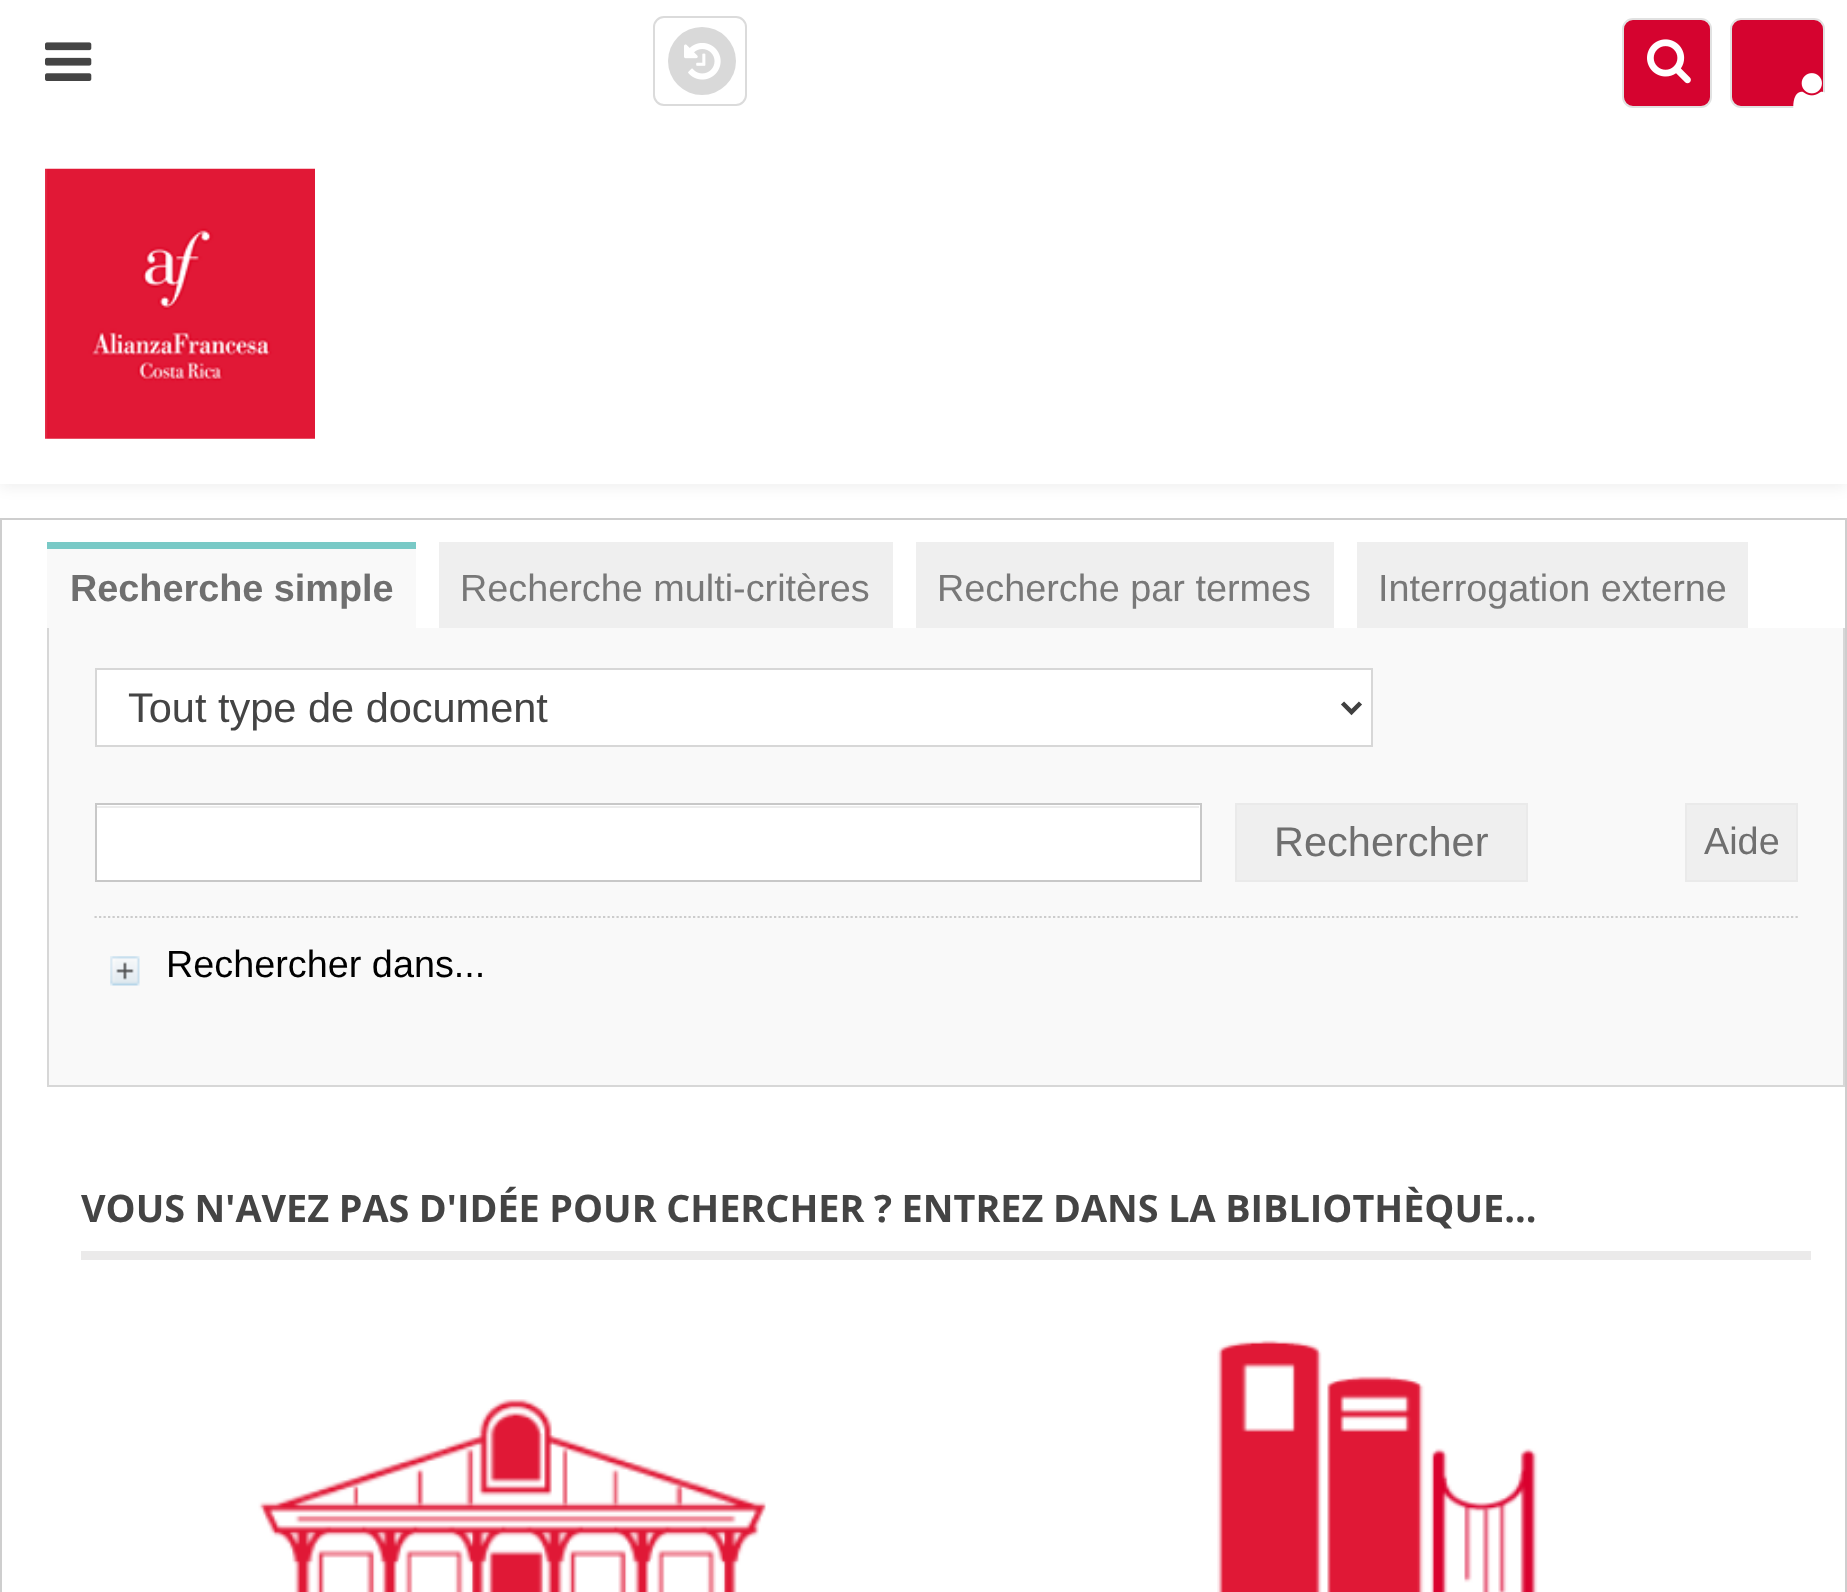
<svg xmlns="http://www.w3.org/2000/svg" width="1847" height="1592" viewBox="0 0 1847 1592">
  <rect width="100%" height="100%" fill="rgb(255,255,255)"/>
  <rect x="0" y="5" width="1847" height="483" fill="rgba(0,0,0,0.06)" filter="blur(7px)"/>
  <rect x="0" y="0" width="1847" height="484" fill="rgb(255,255,255)"/>
  <image x="45" y="42" width="47" height="39" href="pic1.png"/>
  <rect x="1623" y="19" width="88" height="88" rx="10" fill="rgb(213,3,47)" stroke="rgb(225,225,225)" stroke-width="2"/>
  <image x="1647" y="39" width="44" height="45" href="pic2.png"/>
  <rect x="1731" y="19" width="93" height="88" rx="10" fill="rgb(213,3,47)" stroke="rgb(225,225,225)" stroke-width="2"/>
  <image x="1793" y="73" width="32" height="35" href="pic3.png"/>
  <image x="45" y="168" width="270" height="271" href="pic4.png"/>
  <rect x="654" y="17" width="92" height="88" rx="10" fill="none" stroke="rgb(219,219,219)" stroke-width="2"/>
  <circle cx="702" cy="61" r="34" fill="rgb(217,217,217)"/>
  <image x="684" y="43" width="37" height="37" href="pic5.png"/>
  <rect x="1" y="519" width="1845" height="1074" fill="none" stroke="rgb(206,206,206)" stroke-width="2"/>
  <rect x="49" y="628" width="1794" height="457" fill="rgb(249,249,249)"/>
  <rect x="47" y="549" width="369" height="79" fill="rgb(249,249,249)"/>
  <rect x="47" y="542" width="369" height="7" fill="rgb(121,201,198)"/>
  <text x="70" y="601" font-family="Liberation Sans" font-size="37.8" font-weight="bold" fill="rgb(111,111,111)">Recherche simple</text>
  <rect x="439" y="542" width="454" height="86" fill="rgb(239,239,239)"/>
  <text x="460" y="601" font-family="Liberation Sans" font-size="37.8" fill="rgb(120,120,120)">Recherche multi-critères</text>
  <rect x="916" y="542" width="418" height="86" fill="rgb(239,239,239)"/>
  <text x="937" y="601" font-family="Liberation Sans" font-size="37.8" fill="rgb(120,120,120)">Recherche par termes</text>
  <rect x="1357" y="542" width="391" height="86" fill="rgb(239,239,239)"/>
  <text x="1378" y="601" font-family="Liberation Sans" font-size="37.8" fill="rgb(120,120,120)">Interrogation externe</text>
  <rect x="1843" y="628" width="2" height="459" fill="rgb(215,215,215)"/>
  <rect x="47" y="1085" width="1798" height="2" fill="rgb(215,215,215)"/>
  <rect x="47" y="628" width="2" height="459" fill="rgb(215,215,215)"/>
  <rect x="96" y="669" width="1276" height="77" fill="rgb(255,255,255)" stroke="rgb(215,215,215)" stroke-width="2"/>
  <path d="M1342.5 703L1351.5 712L1360.5 703" fill="none" stroke="rgb(64,64,64)" stroke-width="4.5"/>
  <text x="128" y="722" font-family="Liberation Sans" font-size="41.5" fill="rgb(68,68,68)">Tout type de document</text>
  <rect x="97" y="805" width="1103" height="75" fill="rgb(255,255,255)"/>
  <rect x="97" y="806" width="1102" height="2" fill="rgb(236,236,236)"/>
  <rect x="96" y="804" width="1105" height="77" fill="none" stroke="rgb(200,200,200)" stroke-width="2"/>
  <rect x="1236" y="804" width="291" height="77" fill="rgb(239,239,239)" stroke="rgb(234,234,234)" stroke-width="2"/>
  <text x="1274" y="856" font-family="Liberation Sans" font-size="41.5" fill="rgb(111,111,111)">Rechercher</text>
  <rect x="1686" y="804" width="111" height="77" fill="rgb(239,239,239)" stroke="rgb(234,234,234)" stroke-width="2"/>
  <text x="1704" y="854" font-family="Liberation Sans" font-size="37.8" fill="rgb(111,111,111)">Aide</text>
  <path d="M94.5 917H1798" fill="none" stroke="rgb(204,204,204)" stroke-width="2.2" stroke-dasharray="2.25 2.25"/>
  <image x="110" y="956" width="30" height="30" href="pic6.png"/>
  <text x="166" y="977" font-family="Liberation Sans" font-size="37.8" fill="rgb(0,0,0)">Rechercher dans...</text>
  <rect x="81" y="1251" width="1730" height="9" fill="rgb(235,234,234)"/>
  <text x="81" y="1222" word-spacing="-0.25" font-family="Open Sans" font-size="37.8" font-weight="bold" fill="rgb(68,68,68)">VOUS N'AVEZ PAS D'IDÉE POUR CHERCHER ? ENTREZ DANS LA BIBLIOTHÈQUE...</text>
  <image x="258" y="1399" width="508" height="193" href="pic7.png"/>
  <image x="1217" y="1340" width="321" height="252" href="pic8.png"/>
</svg>
